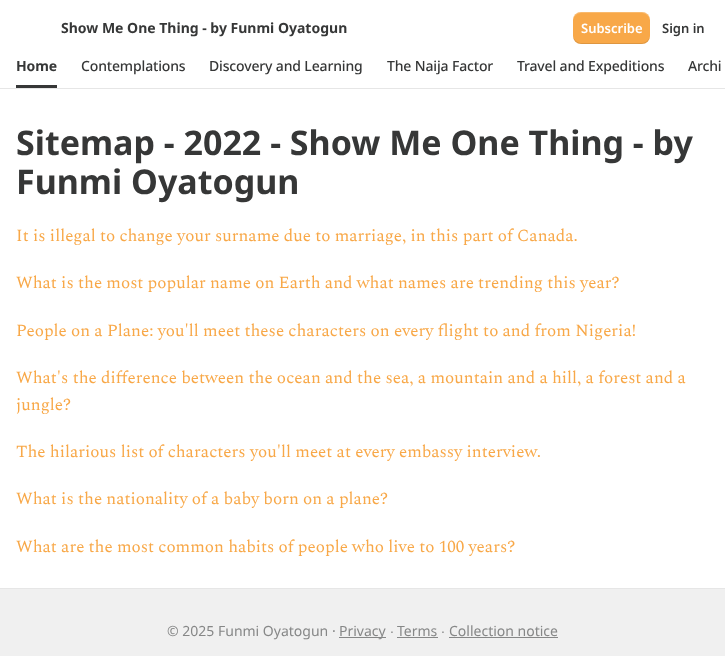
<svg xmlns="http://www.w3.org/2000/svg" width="725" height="656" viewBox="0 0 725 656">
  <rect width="100%" height="100%" fill="rgb(255,255,255)"/>
  <text x="61" y="33" font-family="Noto Sans" font-size="14" font-weight="bold" fill="rgb(54,55,55)">Show Me One Thing - by Funmi Oyatogun</text>
  <rect x="573" y="12" width="77" height="32" rx="8" fill="rgb(248,168,72)"/>
  <path d="M573 35C573 46 583 44 591 44H632C640 44 650 46 650 35C650 39 646 43 642 43H581C577 43 573 39 573 35Z" fill="rgba(0,0,0,0.1)"/>
  <path d="M581 13H642C646 13 650 17 650 21C650 10 640 12 632 12H591C583 12 573 10 573 21C573 17 577 13 581 13Z" fill="rgba(255,255,255,0.2)"/>
  <text x="581" y="33" font-family="Noto Sans" font-size="13" font-weight="600" fill="rgb(255,255,255)">Subscribe</text>
  <text x="662" y="33" font-family="Noto Sans" font-size="13" font-weight="600" fill="rgb(54,55,55)">Sign in</text>
  <rect x="0" y="88" width="725" height="1" fill="rgb(230,230,230)"/>
  <rect x="16" y="85" width="41" height="3" fill="rgb(54,55,55)"/>
  <text x="16" y="71" font-family="Noto Sans" font-size="14" font-weight="bold" letter-spacing="-0.15" fill="rgb(54,55,55)">Home</text>
  <g font-family="Noto Sans" font-size="14" font-weight="500" letter-spacing="-0.15" fill="rgb(54,55,55)">
    <text x="81" y="71">Contemplations</text>
    <text x="209" y="71">Discovery and Learning</text>
    <text x="387" y="71">The Naija Factor</text>
  </g>
  <rect x="583" y="44" width="57" height="1" fill="rgb(255,255,255)"/>
  <g font-family="Noto Sans" font-size="14" font-weight="500" letter-spacing="-0.15" fill="rgb(54,55,55)">
    <text x="517" y="71">Travel and Expeditions</text>
    <text x="688" y="71">Archi</text>
  </g>
  <g font-family="Noto Sans" font-size="34" font-weight="bold" fill="rgb(54,55,55)">
    <text>
      <tspan x="16" y="155">Sitemap - 2022 - Show Me One Thing - by</tspan>
      <tspan x="16" y="194">Funmi Oyatogun</tspan>
    </text>
  </g>
  <g font-family="Spectral" font-size="17" fill="rgb(248,168,72)">
    <text x="16" y="241">It is illegal to change your surname due to marriage, in this part of Canada.</text>
    <text x="16" y="288">What is the most popular name on Earth and what names are trending this year?</text>
    <text x="16" y="336">People on a Plane: you'll meet these characters on every flight to and from Nigeria!</text>
    <text>
      <tspan x="16" y="383">What's the difference between the ocean and the sea, a mountain and a hill, a forest and a</tspan>
      <tspan x="16" y="410">jungle?</tspan>
    </text>
    <text x="16" y="457">The hilarious list of characters you'll meet at every embassy interview.</text>
    <text x="16" y="504">What is the nationality of a baby born on a plane?</text>
    <text x="16" y="552">What are the most common habits of people who live to 100 years?</text>
  </g>
  <rect x="0" y="589" width="725" height="67" fill="rgb(240,240,240)"/>
  <rect x="0" y="588" width="725" height="1" fill="rgb(230,230,230)"/>
  <text x="167" y="636" font-family="Noto Sans" font-size="14" fill="rgb(134,135,135)">© 2025 Funmi Oyatogun ·</text>
  <rect x="339" y="637" width="47" height="1" fill="rgb(134,135,135)"/>
  <text x="339" y="636" font-family="Noto Sans" font-size="14" fill="rgb(134,135,135)">Privacy</text>
  <text x="390" y="636" font-family="Liberation Sans" font-size="14" fill="rgb(134,135,135)">∙</text>
  <text x="397" y="636" font-family="Noto Sans" font-size="14" fill="rgb(134,135,135)">Terms</text>
  <rect x="397" y="637" width="41" height="1" fill="rgb(134,135,135)"/>
  <text x="441" y="636" font-family="Liberation Sans" font-size="14" fill="rgb(134,135,135)">∙</text>
  <text x="449" y="636" font-family="Noto Sans" font-size="14" fill="rgb(134,135,135)">Collection notice</text>
  <rect x="449" y="637" width="109" height="1" fill="rgb(134,135,135)"/>
</svg>
